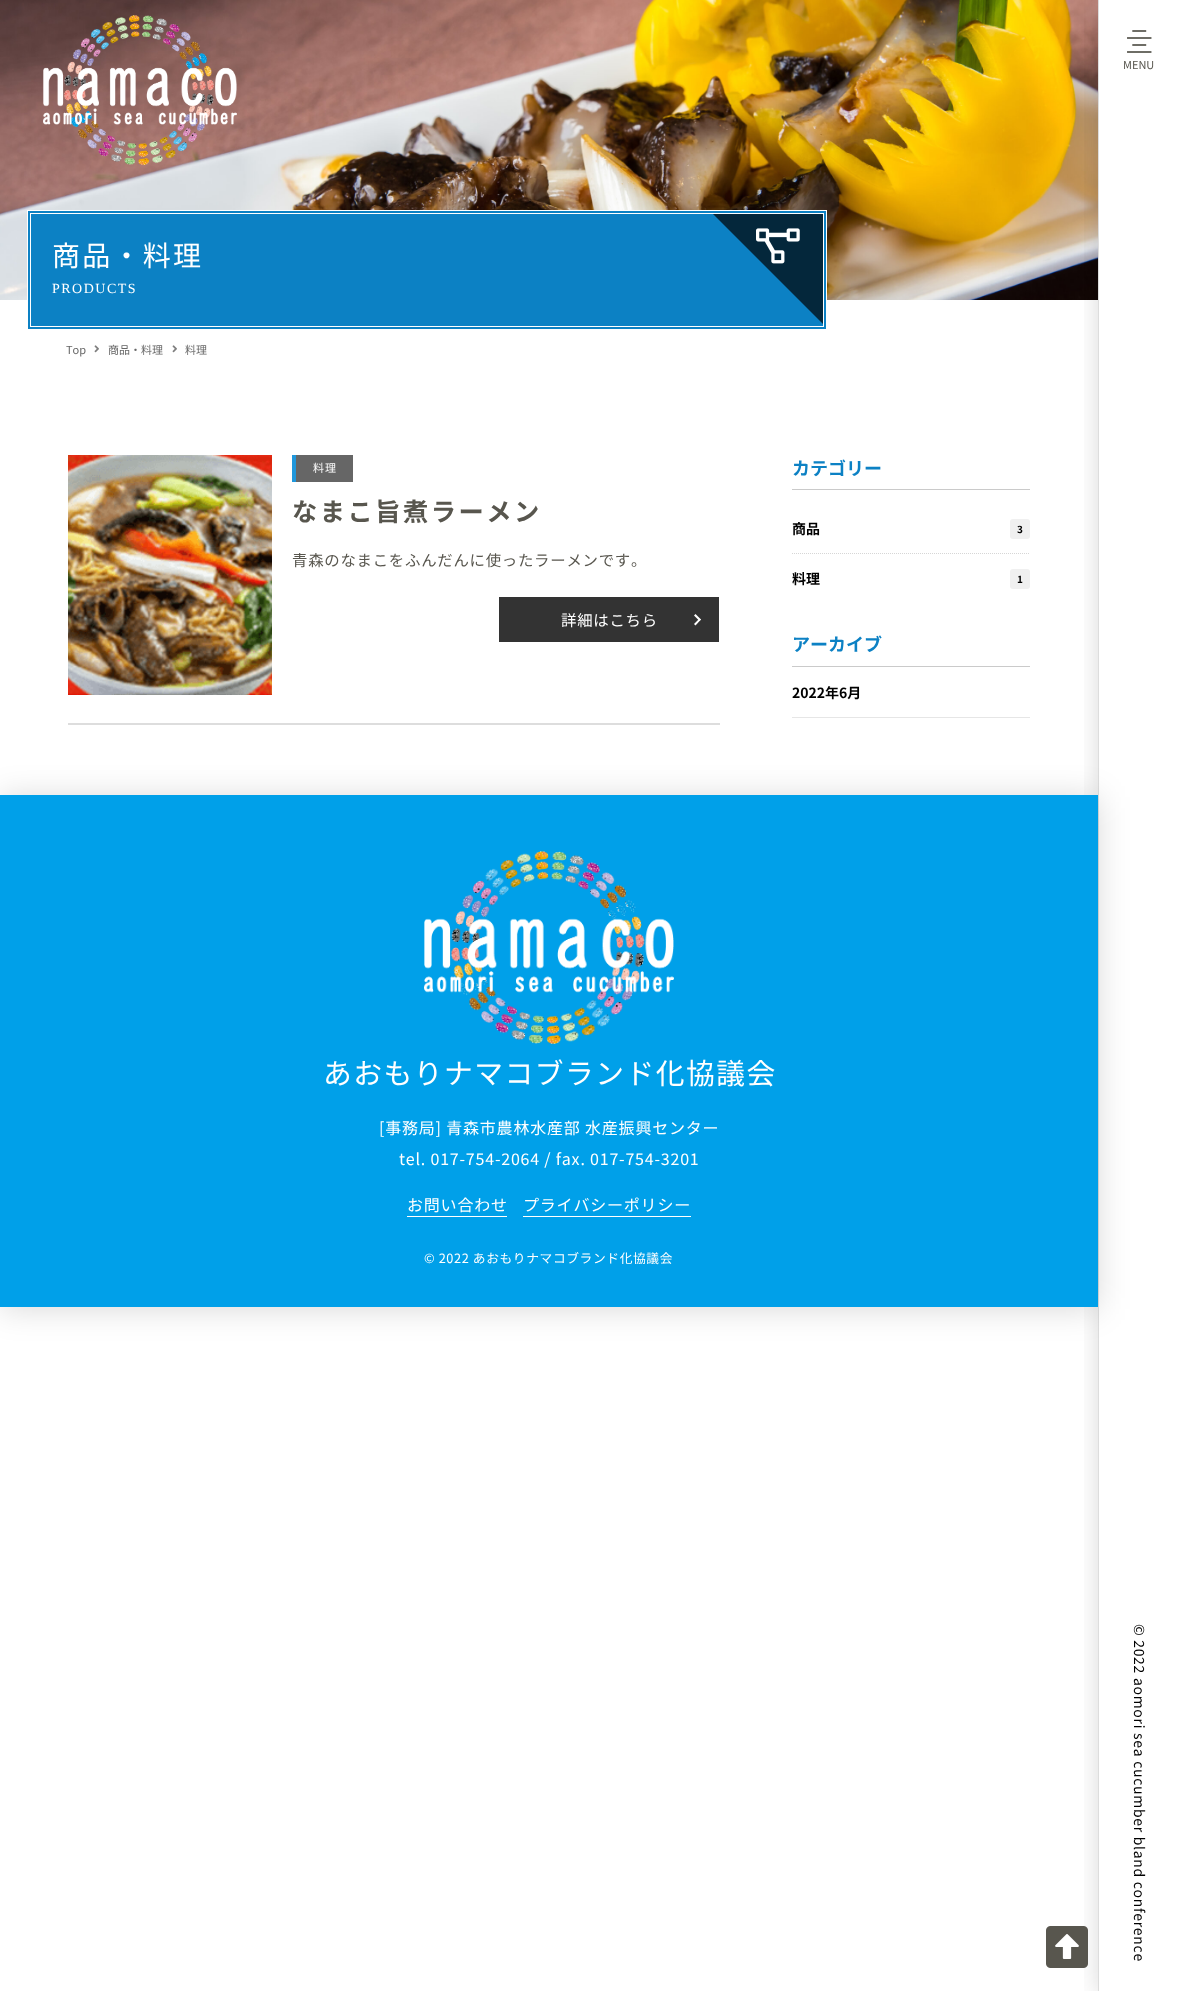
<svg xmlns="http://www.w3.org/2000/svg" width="1178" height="1991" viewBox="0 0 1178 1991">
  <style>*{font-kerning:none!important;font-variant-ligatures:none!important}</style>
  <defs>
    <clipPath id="clip1"><rect x="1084" y="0" width="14" height="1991"/></clipPath>
  </defs>
  <rect width="100%" height="100%" fill="rgb(255,255,255)"/>
  <image x="0" y="0" width="1098" height="300" href="pic1.png"/>
  <image x="43" y="15" width="194" height="150" href="pic2.png"/>
  <rect x="27.5" y="210.5" width="799" height="119" fill="rgb(12,129,196)" stroke="rgb(255,255,255)"/>
  <rect x="30.5" y="213.5" width="793" height="113" fill="none" stroke="rgb(255,255,255)"/>
  <path d="M713 214H823V324Z" fill="rgb(4,39,59)"/>
  <text x="52" y="266" font-family="Noto Sans JP" font-size="28" letter-spacing="2.25" fill="rgb(255,255,255)">商品・料理</text>
  <text x="52" y="293" font-family="Liberation Serif" font-size="14" letter-spacing="1.5" fill="rgb(255,255,255)">PRODUCTS</text>
  <image x="756" y="228" width="44" height="36" href="pic3.png"/>
  <text x="66" y="354" font-family="Noto Sans JP" font-size="11" fill="rgb(102,102,102)">Top</text>
  <image x="94" y="345" width="5" height="8" href="pic4.png"/>
  <text x="108" y="354" font-family="Noto Sans JP" font-size="11" fill="rgb(102,102,102)">商品・料理</text>
  <image x="172" y="345" width="5" height="8" href="pic4.png"/>
  <text x="185" y="354" font-family="Noto Sans JP" font-size="11" fill="rgb(102,102,102)">料理</text>
  <rect x="68" y="723" width="652" height="2" fill="rgb(221,221,221)"/>
  <image x="68" y="455" width="204" height="240" href="pic5.png"/>
  <rect x="296" y="455" width="57" height="27" fill="rgb(102,102,102)"/>
  <rect x="292" y="455" width="4" height="27" fill="rgb(32,151,219)"/>
  <text x="313" y="472" font-family="Noto Sans JP" font-size="11" letter-spacing="1" fill="rgb(255,255,255)">料理</text>
  <text x="292" y="521" font-family="Noto Sans JP" font-size="25.25" font-weight="bold" letter-spacing="2.5" fill="rgb(88,86,78)">なまこ旨煮ラーメン</text>
  <text x="292" y="566" font-family="Noto Sans JP" font-size="15.4" letter-spacing="0.75" fill="rgb(88,86,78)">青森のなまこをふんだんに使ったラーメンです。</text>
  <rect x="499" y="597" width="220" height="45" fill="rgb(51,51,51)"/>
  <text x="561" y="626" font-family="Noto Sans JP" font-size="15.4" letter-spacing="0.75" fill="rgb(255,255,255)">詳細はこちら</text>
  <path d="M695.5 614L701 619.5L699.5 621L694 615.5Z" fill="rgb(255,255,255)"/>
  <path d="M699.5 618.5L701 619.5L695.5 625.5L694 624Z" fill="rgb(255,255,255)"/>
  <rect x="792" y="489" width="238" height="1" fill="rgb(202,202,202)"/>
  <text x="792" y="475" font-family="Noto Sans JP" font-size="18" font-weight="bold" fill="rgb(12,129,196)">カテゴリー</text>
  <text x="792" y="534" font-family="Noto Sans JP" font-size="14" font-weight="bold" fill="rgb(0,0,0)">商品</text>
  <rect x="1010" y="519" width="20" height="20" rx="3" fill="rgb(240,240,240)"/>
  <text x="1017" y="533" font-family="Noto Sans JP" font-size="10" font-weight="bold" fill="rgb(0,0,0)">3</text>
  <path d="M792 553.5H1030" fill="none" stroke="rgb(214,214,214)" stroke-dasharray="1 1"/>
  <text x="792" y="584" font-family="Noto Sans JP" font-size="14" font-weight="bold" fill="rgb(0,0,0)">料理</text>
  <rect x="1010" y="569" width="20" height="20" rx="3" fill="rgb(240,240,240)"/>
  <text x="1017" y="583" font-family="Noto Sans JP" font-size="10" font-weight="bold" fill="rgb(0,0,0)">1</text>
  <rect x="792" y="666" width="238" height="1" fill="rgb(202,202,202)"/>
  <text x="792" y="651" font-family="Noto Sans JP" font-size="18" font-weight="bold" fill="rgb(12,129,196)">アーカイブ</text>
  <rect x="792" y="717" width="238" height="1" fill="rgb(230,230,230)"/>
  <text x="792" y="698" font-family="Noto Sans JP" font-size="14" font-weight="bold" fill="rgb(0,0,0)">2022年6月</text>
  <g clip-path="url(#clip1)">
    <rect x="1098" y="3" width="80" height="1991" fill="rgba(0,0,0,0.15)" filter="blur(12.5px)"/>
  </g>
  <rect x="1098" y="0" width="1" height="1991" fill="rgb(221,221,221)"/>
  <image x="1127" y="30" width="25" height="23" href="pic6.png"/>
  <text x="1123" y="69" font-family="Noto Sans JP" font-size="11" fill="rgb(88,86,78)">MENU</text>
  <text x="1134" y="1624" transform="rotate(90 1134 1624)" font-family="Noto Sans JP" font-size="14" letter-spacing="0.7" fill="rgb(0,0,0)">© 2022 aomori sea cucumber bland conference</text>
  <rect x="0" y="797" width="1098" height="512" fill="rgba(0,0,0,0.15)" filter="blur(16px)"/>
  <rect x="0" y="795" width="1098" height="512" fill="rgb(0,160,233)"/>
  <image x="424" y="851" width="250" height="193" href="pic7.png"/>
  <text x="323" y="1084" font-family="Noto Sans JP" font-size="28.75" letter-spacing="1.5" fill="rgb(255,255,255)">あおもりナマコブランド化協議会</text>
  <g font-family="Noto Sans JP" font-size="16" letter-spacing="0.8" fill="rgb(255,255,255)">
    <text x="379" y="1134">[事務局] 青森市農林水産部 水産振興センター</text>
    <text x="399" y="1165">tel. 017-754-2064 / fax. 017-754-3201</text>
  </g>
  <rect x="407" y="1216" width="100" height="1" fill="rgb(255,255,255)"/>
  <text x="407" y="1211" font-family="Noto Sans JP" font-size="16" letter-spacing="0.8" fill="rgb(255,255,255)">お問い合わせ</text>
  <rect x="523" y="1216" width="168" height="1" fill="rgb(255,255,255)"/>
  <text x="523" y="1211" font-family="Noto Sans JP" font-size="16" letter-spacing="0.8" fill="rgb(255,255,255)">プライバシーポリシー</text>
  <text x="424" y="1263" font-family="Noto Sans JP" font-size="12.75" letter-spacing="0.6" fill="rgb(255,255,255)">© 2022 あおもりナマコブランド化協議会</text>
  <image x="1046" y="1926" width="42" height="42" href="pic8.png"/>
</svg>
